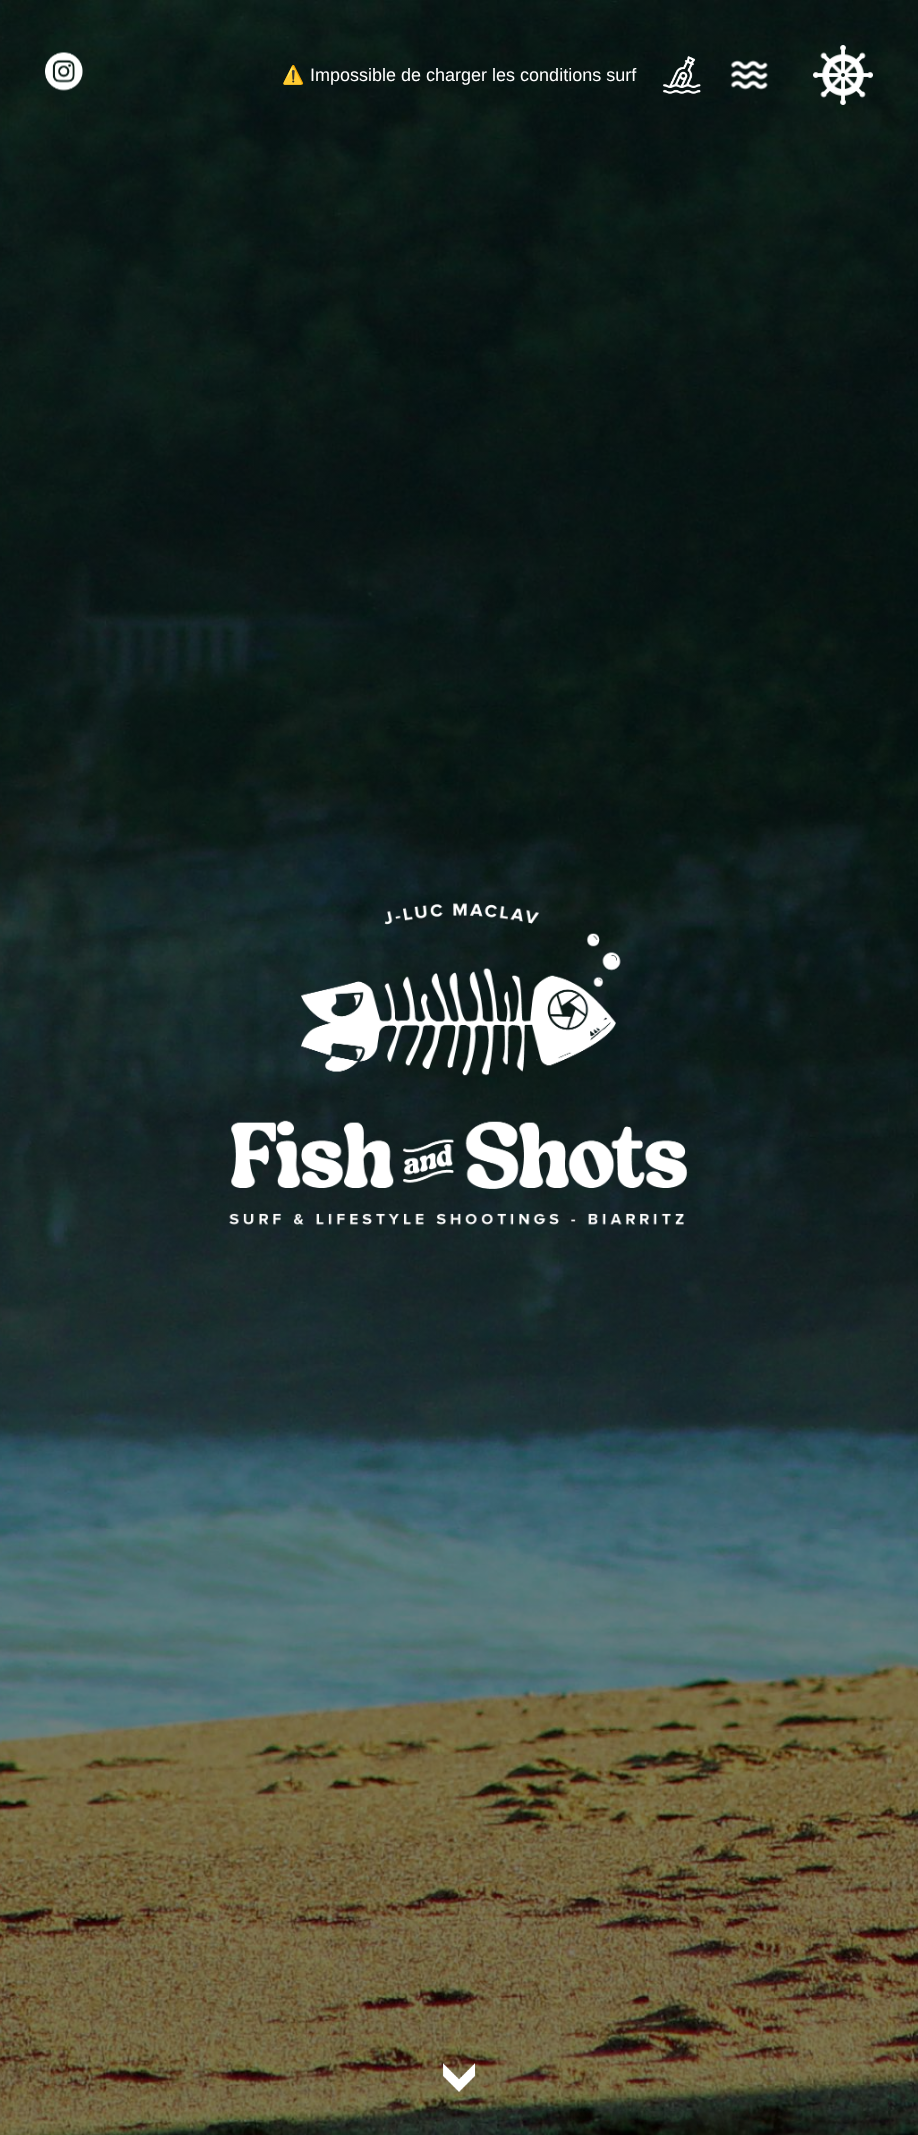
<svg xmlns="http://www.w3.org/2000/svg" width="918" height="2135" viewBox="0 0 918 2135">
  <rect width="100%" height="100%" fill="rgb(255,255,255)"/>
  <image x="0" y="0" width="918" height="2135" href="pic1.png"/>
  <image x="229" y="903" width="459" height="322" href="pic2.png"/>
  <image x="443" y="2063" width="33" height="29" href="pic3.png"/>
  <image x="45" y="52" width="38" height="39" href="pic4.png"/>
  <text x="282" y="81" font-family="Noto Color Emoji" font-size="18" fill="rgb(255,255,255)">⚠️</text>
  <text x="310" y="81" font-family="Liberation Sans" font-size="18" fill="rgb(255,255,255)">Impossible de charger les conditions surf</text>
  <image x="663" y="56" width="38" height="38" href="pic5.png"/>
  <image x="730" y="60" width="38" height="30" href="pic6.png"/>
  <image x="813" y="45" width="60" height="60" href="pic7.png"/>
</svg>
